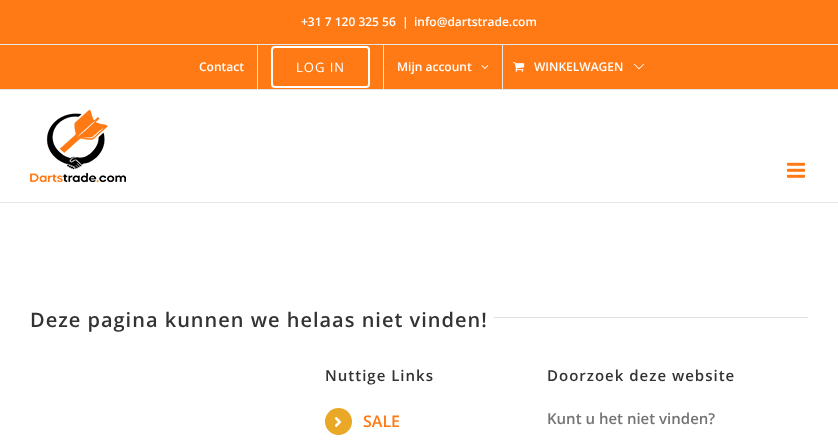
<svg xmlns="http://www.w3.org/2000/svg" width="838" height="440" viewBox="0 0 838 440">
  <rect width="100%" height="100%" fill="rgb(255,255,255)"/>
  <rect x="0" y="0" width="838" height="89" fill="rgb(255,121,21)"/>
  <rect x="0" y="89" width="838" height="1" fill="rgb(229,229,229)"/>
  <rect x="0" y="44" width="838" height="1" fill="rgb(229,229,229)"/>
  <g font-family="Open Sans" font-size="12" font-weight="600" fill="rgb(255,255,255)">
    <text x="301" y="26">+31 7 120 325 56</text>
    <text x="402" y="26">|</text>
    <text x="414" y="26">info@dartstrade.com</text>
    <text x="199" y="71">Contact</text>
  </g>
  <rect x="257" y="45" width="1" height="44" fill="rgb(229,229,229)"/>
  <rect x="272" y="47" width="97" height="40" rx="3" fill="none" stroke="rgb(255,255,255)" stroke-width="2"/>
  <text x="296" y="72" font-family="Open Sans" font-size="13" letter-spacing="1" fill="rgb(255,255,255)">LOG IN</text>
  <rect x="383" y="45" width="1" height="44" fill="rgb(229,229,229)"/>
  <text x="397" y="71" font-family="Open Sans" font-size="12" font-weight="600" fill="rgb(255,255,255)">Mijn account</text>
  <image x="481" y="65" width="8" height="4" href="pic1.png"/>
  <rect x="502" y="45" width="1" height="44" fill="rgb(229,229,229)"/>
  <image x="513" y="62" width="12" height="10" href="pic2.png"/>
  <text x="534" y="71" font-family="Open Sans" font-size="12" font-weight="600" fill="rgb(255,255,255)">WINKELWAGEN</text>
  <image x="633" y="63" width="12" height="7" href="pic3.png"/>
  <rect x="0" y="202" width="838" height="1" fill="rgb(229,229,229)"/>
  <image x="30" y="110" width="96" height="72" href="pic4.png"/>
  <image x="787" y="162" width="18" height="16" href="pic5.png"/>
  <text x="30" y="327" font-family="Open Sans" font-size="20" font-weight="600" letter-spacing="1" fill="rgb(51,51,51)">Deze pagina kunnen we helaas niet vinden!</text>
  <rect x="494" y="317" width="314" height="1" fill="rgb(224,222,222)"/>
  <text x="325" y="381" font-family="Open Sans" font-size="15" font-weight="600" letter-spacing="1" fill="rgb(51,51,51)">Nuttige Links</text>
  <circle cx="338.5" cy="421.5" r="13.5" fill="rgb(233,168,37)"/>
  <image x="334" y="417" width="8" height="10" href="pic6.png"/>
  <text x="363" y="427" font-family="Open Sans" font-size="16" font-weight="600" fill="rgb(255,121,21)">SALE</text>
  <text x="547" y="381" font-family="Open Sans" font-size="15" font-weight="600" letter-spacing="1" fill="rgb(51,51,51)">Doorzoek deze website</text>
  <text x="547" y="424" font-family="Open Sans" font-size="15" font-weight="600" fill="rgb(116,116,116)">Kunt u het niet vinden?</text>
</svg>
